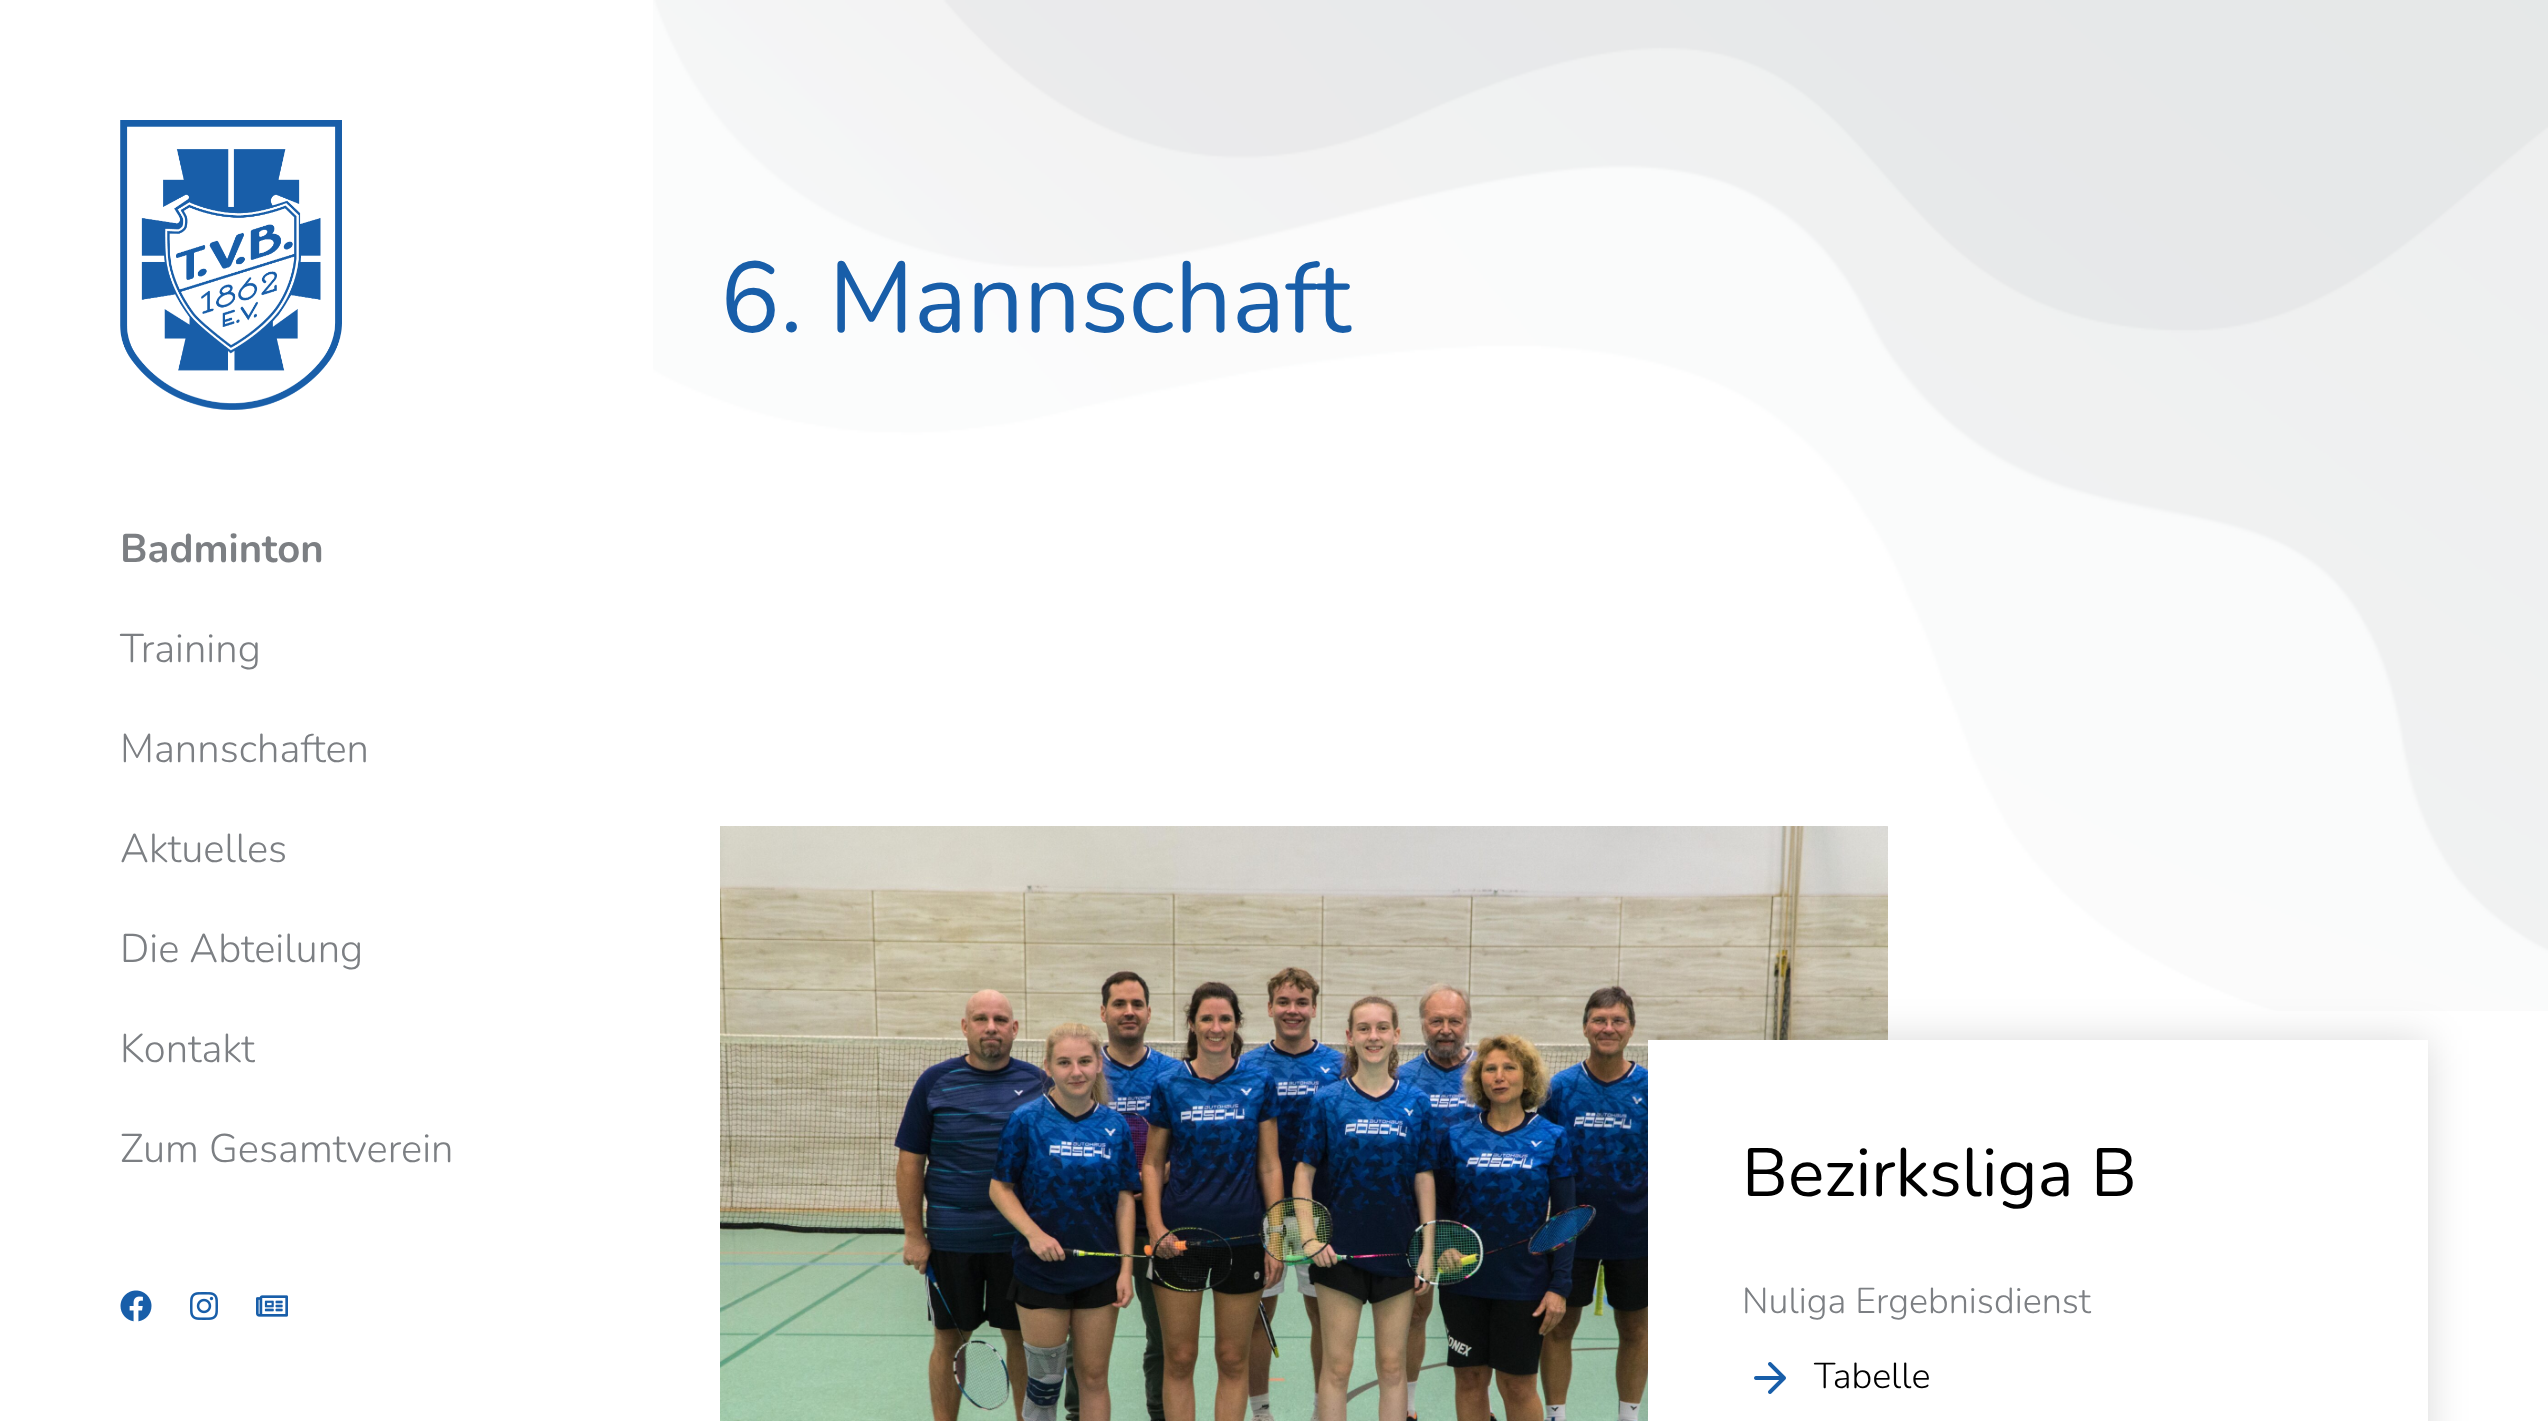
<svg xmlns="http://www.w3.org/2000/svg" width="2548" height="1421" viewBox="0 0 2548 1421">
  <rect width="100%" height="100%" fill="rgb(255,255,255)"/>
  <image x="653" y="0" width="1895" height="1011" href="pic1.png"/>
  <image x="120" y="120" width="222" height="290" href="pic2.png"/>
  <text x="120" y="562" font-family="Nunito" font-size="40" font-weight="bold" fill="rgb(124,127,131)">Badminton</text>
  <g font-family="Nunito" font-size="40" font-weight="300" fill="rgb(124,127,131)">
    <text x="120" y="662">Training</text>
    <text x="120" y="762">Mannschaften</text>
    <text x="120" y="862">Aktuelles</text>
    <text x="120" y="962">Die Abteilung</text>
    <text x="120" y="1062">Kontakt</text>
    <text x="120" y="1162">Zum Gesamtverein</text>
  </g>
  <image x="120" y="1290" width="32" height="32" href="pic3.png"/>
  <image x="190" y="1292" width="28" height="28" href="pic4.png"/>
  <image x="256" y="1295" width="32" height="22" href="pic5.png"/>
  <text x="720" y="332" font-family="Nunito" font-size="100" fill="rgb(24,94,169)">6. Mannschaft</text>
  <image x="720" y="826" width="1168" height="595" href="pic6.png"/>
  <rect x="1648" y="1040" width="780" height="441" fill="rgba(0,0,0,0.15)" filter="blur(20px)"/>
  <rect x="1648" y="1040" width="780" height="381" fill="rgb(255,255,255)"/>
  <text x="1742" y="1196" font-family="Nunito" font-size="68" fill="rgb(0,0,0)">Bezirksliga B</text>
  <text x="1742" y="1313" font-family="Nunito" font-size="36" font-weight="300" fill="rgb(124,127,131)">Nuliga Ergebnisdienst</text>
  <image x="1754" y="1362" width="32" height="32" href="pic7.png"/>
  <text x="1814" y="1388" font-family="Nunito" font-size="36" font-weight="300" fill="rgb(0,0,0)">Tabelle</text>
</svg>
